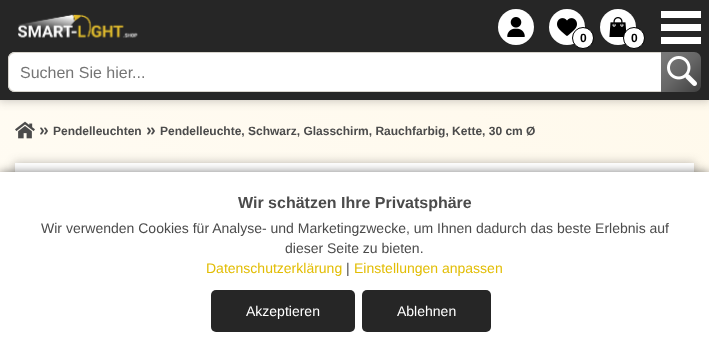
<svg xmlns="http://www.w3.org/2000/svg" width="709" height="352" viewBox="0 0 709 352">
  <defs>
    <linearGradient id="g1" gradientUnits="userSpaceOnUse" x1="-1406" y1="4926" x2="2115" y2="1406"><stop offset="0" stop-color="rgb(228,228,228)"/><stop offset="0.34" stop-color="rgb(255,250,239)"/><stop offset="0.66" stop-color="rgb(255,255,255)"/><stop offset="1" stop-color="rgb(255,249,235)"/></linearGradient>
    <linearGradient id="g2" gradientUnits="userSpaceOnUse" x1="661" y1="52" x2="701" y2="92"><stop offset="0.1" stop-color="rgb(120,120,120)"/><stop offset="0.5" stop-color="rgb(102,102,102)"/><stop offset="0.9" stop-color="rgb(70,70,70)"/></linearGradient>
  </defs>
  <rect width="100%" height="100%" fill="rgb(255,255,255)"/>
  <rect x="0" y="100" width="709" height="72" fill="url(#g1)"/>
  <rect x="-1" y="-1" width="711" height="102" fill="rgba(40,40,40,0.25)" filter="blur(5px)"/>
  <rect x="0" y="0" width="709" height="100" fill="rgb(38,38,38)"/>
  <image x="18" y="14" width="120" height="24" href="pic1.png"/>
  <circle cx="516" cy="27" r="18" fill="rgb(255,255,255)"/>
  <image x="507" y="17" width="18" height="20" href="pic2.png"/>
  <circle cx="567" cy="27" r="18" fill="rgb(255,255,255)"/>
  <image x="557" y="18" width="20" height="18" href="pic3.png"/>
  <circle cx="583" cy="38" r="10.5" fill="rgb(255,255,255)" stroke="rgb(0,0,0)"/>
  <text x="580" y="42" font-family="Liberation Sans" font-size="12" font-weight="bold" fill="rgb(0,0,0)">0</text>
  <circle cx="618" cy="27" r="18" fill="rgb(255,255,255)"/>
  <image x="609" y="17" width="18" height="20" href="pic4.png"/>
  <circle cx="634" cy="38" r="10.5" fill="rgb(255,255,255)" stroke="rgb(0,0,0)"/>
  <text x="631" y="42" font-family="Liberation Sans" font-size="12" font-weight="bold" fill="rgb(0,0,0)">0</text>
  <rect x="661" y="11" width="40" height="7" fill="rgb(255,255,255)"/>
  <rect x="661" y="24" width="40" height="7" fill="rgb(255,255,255)"/>
  <rect x="661" y="37" width="40" height="7" fill="rgb(255,255,255)"/>
  <path d="M15 52H665V92H15C11 92 8 89 8 85V59C8 55 11 52 15 52Z" fill="rgb(255,255,255)"/>
  <path d="M15 52H665V92H15C11 92 8 89 8 85V59C8 55 11 52 15 52ZM15 53H665V91H15C12 91 9 88 9 85V59C9 56 12 53 15 53Z" fill="rgb(215,212,205)" fill-rule="evenodd"/>
  <path d="M661 52H694C698 52 701 55 701 59V85C701 89 698 92 694 92H661Z" fill="url(#g2)"/>
  <text x="20" y="78" font-family="Liberation Sans" font-size="16" fill="rgb(117,117,117)">Suchen Sie hier...</text>
  <image x="667" y="56" width="30" height="30" href="pic5.png"/>
  <image x="15" y="121" width="20" height="18" href="pic6.png"/>
  <image x="40" y="127" width="8" height="8" href="pic7.png"/>
  <text x="53" y="135" font-family="Liberation Sans" font-size="12" font-weight="bold" fill="rgb(75,75,75)">Pendelleuchten</text>
  <image x="147" y="127" width="8" height="8" href="pic8.png"/>
  <text x="160" y="135" font-family="Liberation Sans" font-size="12" font-weight="bold" fill="rgb(75,75,75)">Pendelleuchte, Schwarz, Glasschirm, Rauchfarbig, Kette, 30 cm Ø</text>
  <rect x="14" y="162" width="681" height="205" fill="rgba(40,40,40,0.25)" filter="blur(5px)"/>
  <rect x="15" y="163" width="679" height="9" fill="rgb(255,255,255)"/>
  <rect x="0" y="172" width="709" height="180" fill="rgba(0,0,0,0.5)" filter="blur(5px)"/>
  <rect x="0" y="172" width="709" height="180" fill="rgb(255,255,255)"/>
  <text x="238" y="208" font-family="Liberation Sans" font-size="16" font-weight="bold" fill="rgb(75,75,75)">Wir schätzen Ihre Privatsphäre</text>
  <g font-family="Liberation Sans" font-size="14" fill="rgb(75,75,75)">
    <text x="41" y="233">Wir verwenden Cookies für Analyse- und Marketingzwecke, um Ihnen dadurch das beste Erlebnis auf</text>
    <text x="285" y="253">dieser Seite zu bieten.</text>
  </g>
  <text x="206" y="273" font-family="Liberation Sans" font-size="14" fill="rgb(226,189,5)">Datenschutzerklärung</text>
  <text x="346" y="273" font-family="Liberation Sans" font-size="14" fill="rgb(75,75,75)">|</text>
  <text x="354" y="273" font-family="Liberation Sans" font-size="14" fill="rgb(226,189,5)">Einstellungen anpassen</text>
  <rect x="211" y="290" width="144" height="42" rx="5" fill="rgb(38,38,38)"/>
  <text x="246" y="316" font-family="Liberation Sans" font-size="14" fill="rgb(255,255,255)">Akzeptieren</text>
  <rect x="362" y="290" width="129" height="42" rx="5" fill="rgb(38,38,38)"/>
  <text x="397" y="316" font-family="Liberation Sans" font-size="14" fill="rgb(255,255,255)">Ablehnen</text>
</svg>
